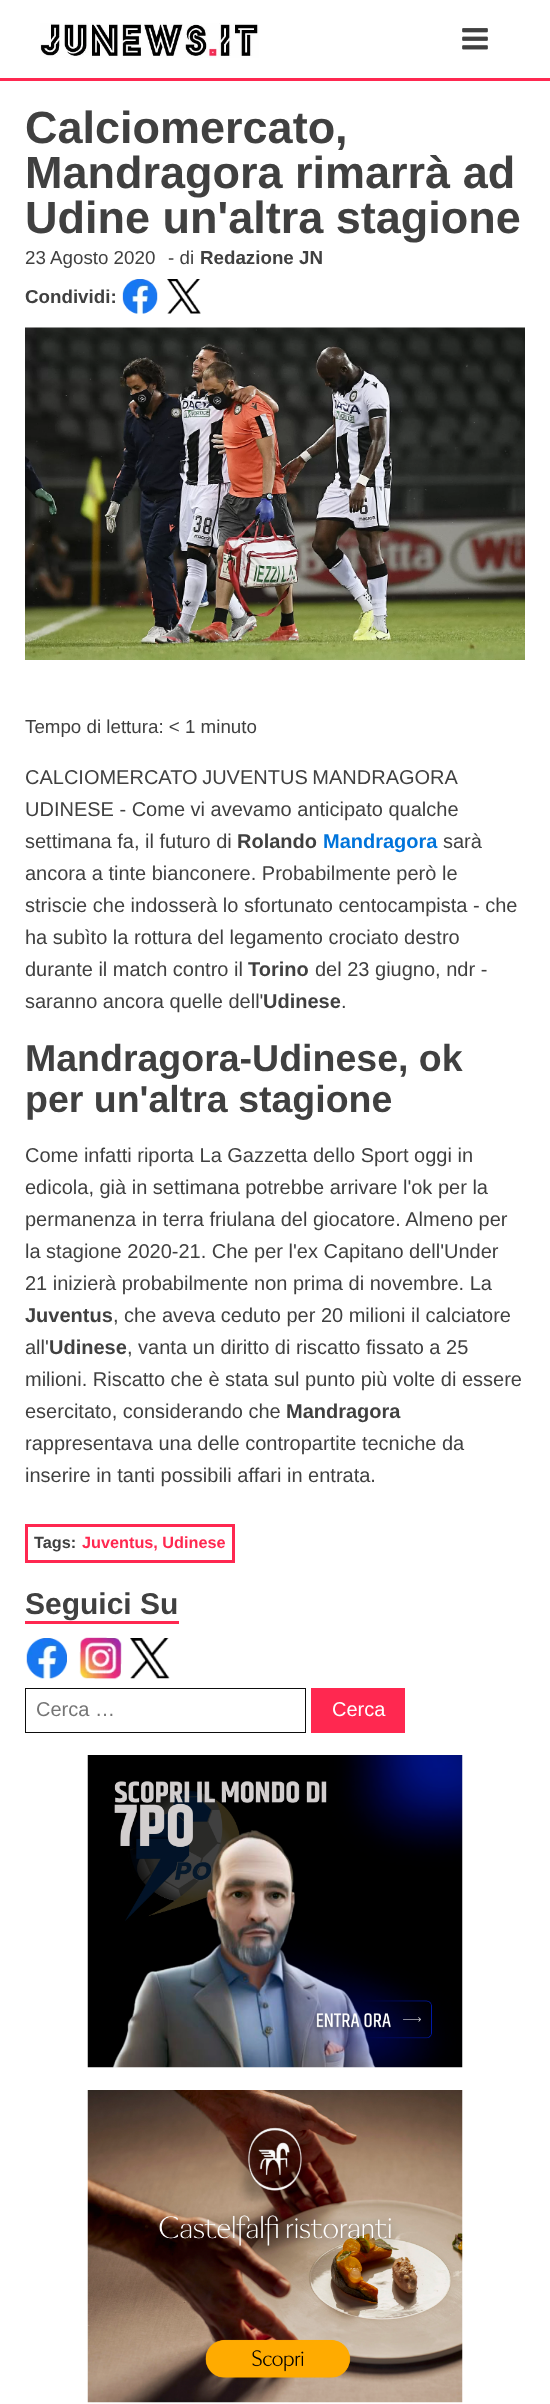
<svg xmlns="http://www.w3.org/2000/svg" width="550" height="2404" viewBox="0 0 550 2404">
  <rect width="100%" height="100%" fill="rgb(255,255,255)"/>
  <rect x="0" y="78" width="550" height="3" fill="rgb(255,40,80)"/>
  <image x="40" y="23" width="219" height="35" href="pic1.png"/>
  <image x="462" y="28" width="26" height="22" href="pic2.png"/>
  <g font-family="Liberation Sans" font-size="45" font-weight="bold" fill="rgb(64,64,64)">
    <text>
      <tspan x="25" y="143">Calciomercato,</tspan>
      <tspan x="25" y="188">Mandragora rimarrà ad</tspan>
      <tspan x="25" y="233">Udine un'altra stagione</tspan>
    </text>
  </g>
  <g font-family="Liberation Sans" font-size="18.75" fill="rgb(64,64,64)">
    <text x="25" y="264">23 Agosto 2020</text>
    <text x="168" y="264">- di</text>
  </g>
  <g font-family="Liberation Sans" font-size="18.75" font-weight="bold" fill="rgb(64,64,64)">
    <text x="200" y="264">Redazione JN</text>
    <text x="25" y="303">Condividi:</text>
  </g>
  <image x="122" y="279" width="36" height="35" href="pic3.png"/>
  <image x="167" y="279" width="34" height="35" href="pic4.png"/>
  <image x="25" y="327" width="500" height="333" href="pic5.png"/>
  <text x="25" y="733" font-family="Liberation Sans" font-size="18.75" fill="rgb(64,64,64)">Tempo di lettura: &lt; 1 minuto</text>
  <g font-family="Liberation Sans" font-size="20" fill="rgb(64,64,64)">
    <text>
      <tspan x="25" y="784" word-spacing="-1">CALCIOMERCATO JUVENTUS MANDRAGORA</tspan>
      <tspan x="25" y="816">UDINESE - Come vi avevamo anticipato qualche</tspan>
      <tspan x="25" y="848">settimana fa, il futuro di</tspan>
    </text>
  </g>
  <text x="237" y="848" font-family="Liberation Sans" font-size="20" font-weight="bold" fill="rgb(64,64,64)">Rolando</text>
  <text x="323" y="848" font-family="Liberation Sans" font-size="20" font-weight="bold" fill="rgb(0,116,219)">Mandragora</text>
  <g font-family="Liberation Sans" font-size="20" fill="rgb(64,64,64)">
    <text x="443" y="848">sarà</text>
    <text>
      <tspan x="25" y="880">ancora a tinte bianconere. Probabilmente però le</tspan>
      <tspan x="25" y="912">striscie che indosserà lo sfortunato centocampista - che</tspan>
      <tspan x="25" y="944">ha subìto la rottura del legamento crociato destro</tspan>
      <tspan x="25" y="976">durante il match contro il</tspan>
    </text>
  </g>
  <text x="248" y="976" font-family="Liberation Sans" font-size="20" font-weight="bold" fill="rgb(64,64,64)">Torino</text>
  <g font-family="Liberation Sans" font-size="20" fill="rgb(64,64,64)">
    <text x="315" y="976">del 23 giugno, ndr -</text>
    <text x="25" y="1008">saranno ancora quelle dell'</text>
  </g>
  <text x="263" y="1008" font-family="Liberation Sans" font-size="20" font-weight="bold" fill="rgb(64,64,64)">Udinese</text>
  <text x="341" y="1008" font-family="Liberation Sans" font-size="20" fill="rgb(64,64,64)">.</text>
  <g font-family="Liberation Sans" font-size="37.5" font-weight="bold" fill="rgb(64,64,64)">
    <text>
      <tspan x="25" y="1071">Mandragora-Udinese, ok</tspan>
      <tspan x="25" y="1112">per un'altra stagione</tspan>
    </text>
  </g>
  <g font-family="Liberation Sans" font-size="20" fill="rgb(64,64,64)">
    <text>
      <tspan x="25" y="1162">Come infatti riporta La Gazzetta dello Sport oggi in</tspan>
      <tspan x="25" y="1194">edicola, già in settimana potrebbe arrivare l'ok per la</tspan>
      <tspan x="25" y="1226">permanenza in terra friulana del giocatore. Almeno per</tspan>
      <tspan x="25" y="1258">la stagione 2020-21. Che per l'ex Capitano dell'Under</tspan>
      <tspan x="25" y="1290">21 inizierà probabilmente non prima di novembre. La</tspan>
    </text>
  </g>
  <text x="25" y="1322" font-family="Liberation Sans" font-size="20" font-weight="bold" fill="rgb(64,64,64)">Juventus</text>
  <g font-family="Liberation Sans" font-size="20" fill="rgb(64,64,64)">
    <text x="113" y="1322">, che aveva ceduto per 20 milioni il calciatore</text>
    <text x="25" y="1354">all'</text>
  </g>
  <text x="49" y="1354" font-family="Liberation Sans" font-size="20" font-weight="bold" fill="rgb(64,64,64)">Udinese</text>
  <g font-family="Liberation Sans" font-size="20" fill="rgb(64,64,64)">
    <text x="127" y="1354">, vanta un diritto di riscatto fissato a 25</text>
    <text>
      <tspan x="25" y="1386">milioni. Riscatto che è stata sul punto più volte di essere</tspan>
      <tspan x="25" y="1418">esercitato, considerando che</tspan>
    </text>
  </g>
  <text x="286" y="1418" font-family="Liberation Sans" font-size="20" font-weight="bold" fill="rgb(64,64,64)">Mandragora</text>
  <g font-family="Liberation Sans" font-size="20" fill="rgb(64,64,64)">
    <text>
      <tspan x="25" y="1450">rappresentava una delle contropartite tecniche da</tspan>
      <tspan x="25" y="1482">inserire in tanti possibili affari in entrata.</tspan>
    </text>
  </g>
  <rect x="26.5" y="1525.5" width="207" height="36" fill="none" stroke="rgb(255,40,80)" stroke-width="3"/>
  <text x="34" y="1548" font-family="Liberation Sans" font-size="16.25" font-weight="bold" fill="rgb(64,64,64)">Tags:</text>
  <text x="82" y="1548" font-family="Liberation Sans" font-size="16.25" font-weight="bold" fill="rgb(255,40,80)">Juventus, Udinese</text>
  <rect x="25" y="1621" width="154" height="3" fill="rgb(255,40,80)"/>
  <text x="25" y="1614" font-family="Liberation Sans" font-size="30" font-weight="bold" fill="rgb(64,64,64)">Seguici Su</text>
  <image x="26" y="1638" width="41" height="41" href="pic6.png"/>
  <image x="79" y="1637" width="43" height="43" href="pic7.png"/>
  <image x="130" y="1638" width="40" height="41" href="pic8.png"/>
  <rect x="25.5" y="1688.5" width="280" height="44" fill="none" stroke="rgb(13,13,13)"/>
  <text x="36" y="1716" font-family="Liberation Sans" font-size="20" fill="rgb(117,117,117)">Cerca …</text>
  <rect x="311" y="1688" width="94" height="45" fill="rgb(255,40,80)"/>
  <text x="332" y="1716" font-family="Liberation Sans" font-size="20" fill="rgb(255,255,255)">Cerca</text>
  <image x="87" y="1755" width="376" height="313" href="pic9.png"/>
  <image x="87" y="2090" width="376" height="313" href="pic10.png"/>
</svg>
